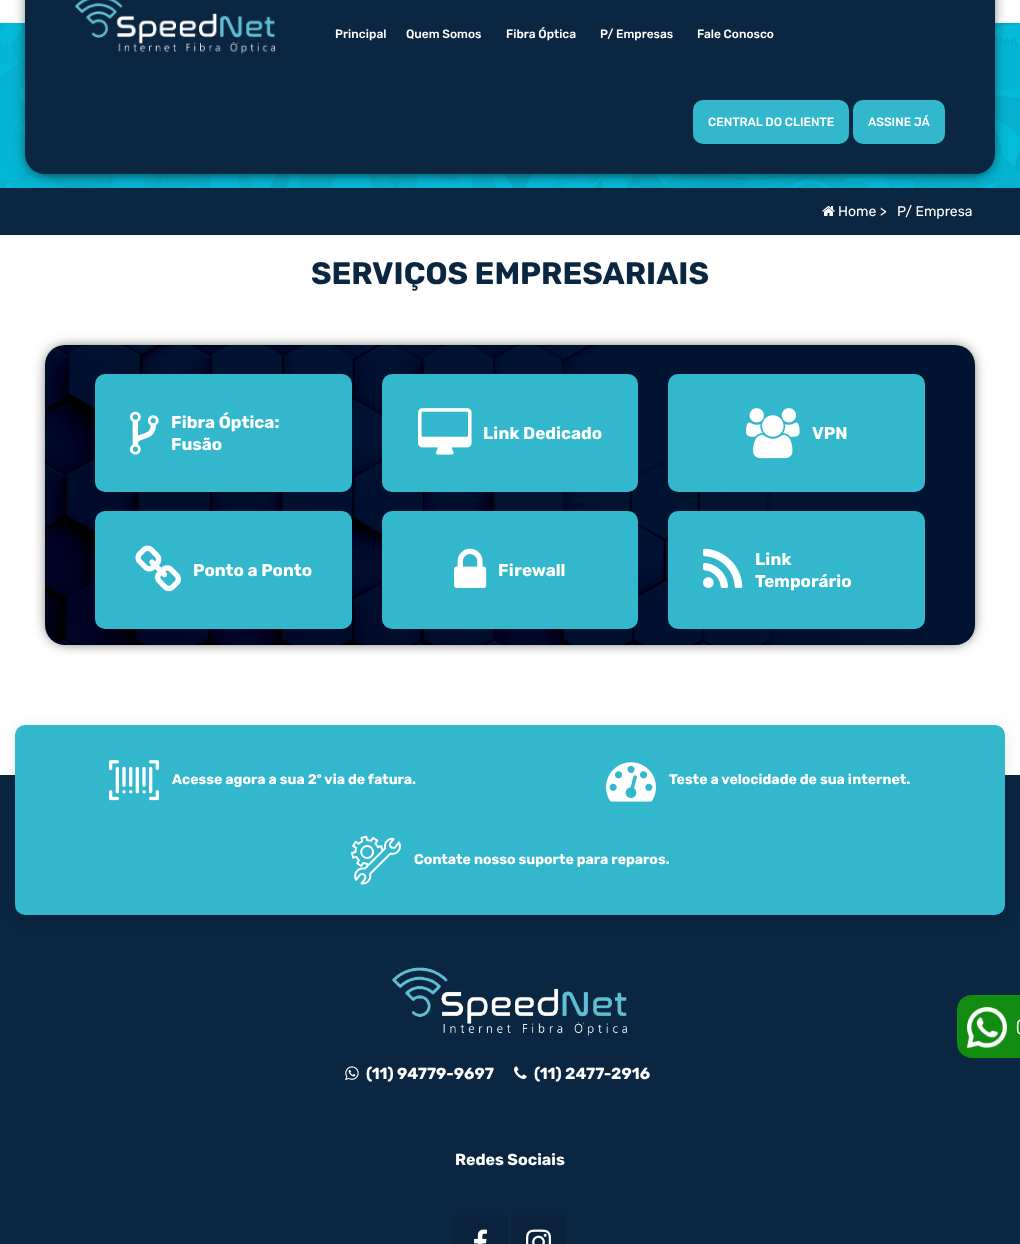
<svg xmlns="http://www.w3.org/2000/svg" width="1020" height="1244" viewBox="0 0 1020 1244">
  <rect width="100%" height="100%" fill="rgb(255,255,255)"/>
  <image x="0" y="23" width="1020" height="165" href="pic1.png"/>
  <rect x="0" y="188" width="1020" height="47" fill="rgb(11,38,65)"/>
  <rect x="30" y="-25" width="960" height="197" rx="15" fill="rgb(5,5,5)" filter="blur(7.5px)"/>
  <rect x="25" y="-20" width="970" height="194" rx="20" fill="rgb(11,38,65)"/>
  <image x="75" y="0" width="200" height="54" href="pic2.png"/>
  <g font-family="'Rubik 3'" font-size="12" font-weight="300" fill="rgb(255,255,255)">
    <text x="335" y="38">Principal</text>
    <text x="406" y="38">Quem Somos</text>
    <text x="506" y="38">Fibra Óptica</text>
    <text x="600" y="38">P/ Empresas</text>
    <text x="697" y="38">Fale Conosco</text>
  </g>
  <rect x="693" y="100" width="156" height="44" rx="10" fill="rgb(51,183,204)"/>
  <text x="708" y="126" font-family="'Rubik 3'" font-size="12" font-weight="300" fill="rgb(255,255,255)">CENTRAL DO CLIENTE</text>
  <rect x="853" y="100" width="92" height="44" rx="10" fill="rgb(51,183,204)"/>
  <text x="868" y="126" font-family="'Rubik 3'" font-size="12" font-weight="300" fill="rgb(255,255,255)">ASSINE JÁ</text>
  <rect x="0" y="775" width="1020" height="469" fill="rgb(11,38,65)"/>
  <path d="M972 995H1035V1058H972C963.5 1058 957 1051.5 957 1043V1010C957 1001.5 963.5 995 972 995Z" fill="rgb(17,140,17)"/>
  <image x="967" y="1007" width="40" height="41" href="pic3.png"/>
  <text x="1016" y="1032" font-family="'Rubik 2'" font-size="16" font-weight="300" fill="rgb(255,255,255)">(</text>
  <image x="822" y="206" width="13" height="10" href="pic4.png"/>
  <g font-family="'Rubik 2'" font-size="14" font-weight="300" fill="rgb(255,255,255)">
    <text x="838" y="216">Home &gt;</text>
    <text x="897" y="216">P/ Empresa</text>
  </g>
  <text x="311" y="284" font-family="Rubik" font-size="31" font-weight="300" fill="rgb(11,38,65)">SERVIÇOS EMPRESARIAIS</text>
  <rect x="50" y="350" width="920" height="290" rx="15" fill="rgb(0,0,0)" filter="blur(7.5px)"/>
  <image x="45" y="345" width="930" height="300" href="pic5.png"/>
  <rect x="95" y="374" width="257" height="118" rx="10" fill="rgb(51,183,204)"/>
  <image x="130" y="411" width="29" height="44" href="pic6.png"/>
  <g font-family="Rubik" font-size="17" font-weight="300" fill="rgb(255,255,255)">
    <text>
      <tspan x="171" y="428">Fibra Óptica:</tspan>
      <tspan x="171" y="450">Fusão</tspan>
    </text>
  </g>
  <rect x="382" y="374" width="256" height="118" rx="10" fill="rgb(51,183,204)"/>
  <image x="418" y="408" width="54" height="47" href="pic7.png"/>
  <text x="483" y="439" font-family="Rubik" font-size="17" font-weight="300" fill="rgb(255,255,255)">Link Dedicado</text>
  <rect x="668" y="374" width="257" height="118" rx="10" fill="rgb(51,183,204)"/>
  <image x="746" y="408" width="54" height="51" href="pic8.png"/>
  <text x="812" y="439" font-family="Rubik" font-size="17" font-weight="300" fill="rgb(255,255,255)">VPN</text>
  <rect x="95" y="511" width="257" height="118" rx="10" fill="rgb(51,183,204)"/>
  <image x="135" y="545" width="46" height="47" href="pic9.png"/>
  <text x="193" y="576" font-family="Rubik" font-size="17" font-weight="300" fill="rgb(255,255,255)">Ponto a Ponto</text>
  <rect x="382" y="511" width="256" height="118" rx="10" fill="rgb(51,183,204)"/>
  <image x="454" y="548" width="33" height="40" href="pic10.png"/>
  <text x="498" y="576" font-family="Rubik" font-size="17" font-weight="300" fill="rgb(255,255,255)">Firewall</text>
  <rect x="668" y="511" width="257" height="118" rx="10" fill="rgb(51,183,204)"/>
  <image x="703" y="548" width="40" height="40" href="pic11.png"/>
  <g font-family="Rubik" font-size="17" font-weight="300" fill="rgb(255,255,255)">
    <text>
      <tspan x="755" y="565">Link</tspan>
      <tspan x="755" y="587">Temporário</tspan>
    </text>
  </g>
  <rect x="15" y="728" width="990" height="190" rx="10" fill="rgba(0,0,0,0.1)" filter="blur(7.5px)"/>
  <rect x="15" y="725" width="990" height="190" rx="10" fill="rgb(51,183,204)"/>
  <image x="109" y="760" width="50" height="41" href="pic12.png"/>
  <text x="172" y="784" font-family="Rubik" font-size="14" font-weight="300" fill="rgb(255,255,255)">Acesse agora a sua 2º via de fatura.</text>
  <image x="606" y="762" width="50" height="40" href="pic13.png"/>
  <text x="669" y="784" font-family="Rubik" font-size="14" font-weight="300" fill="rgb(255,255,255)">Teste a velocidade de sua internet.</text>
  <image x="351" y="835" width="50" height="50" href="pic14.png"/>
  <text x="414" y="864" font-family="Rubik" font-size="14" font-weight="300" fill="rgb(255,255,255)">Contate nosso suporte para reparos.</text>
  <image x="392" y="967" width="235" height="69" href="pic15.png"/>
  <image x="345" y="1066" width="14" height="15" href="pic16.png"/>
  <text x="366" y="1079" font-family="Rubik" font-size="16" font-weight="300" fill="rgb(255,255,255)">(11) 94779-9697</text>
  <image x="514" y="1066" width="13" height="13" href="pic17.png"/>
  <g font-family="Rubik" font-size="16" font-weight="300" fill="rgb(255,255,255)">
    <text x="534" y="1079">(11) 2477-2916</text>
    <text x="455" y="1165">Redes Sociais</text>
  </g>
  <rect x="453" y="1215" width="55" height="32" rx="3" fill="rgb(10,34,59)"/>
  <image x="474" y="1229" width="13" height="15" href="pic18.png"/>
  <rect x="511" y="1215" width="55" height="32" rx="3" fill="rgb(10,34,59)"/>
  <image x="526" y="1229" width="25" height="15" href="pic19.png"/>
</svg>
